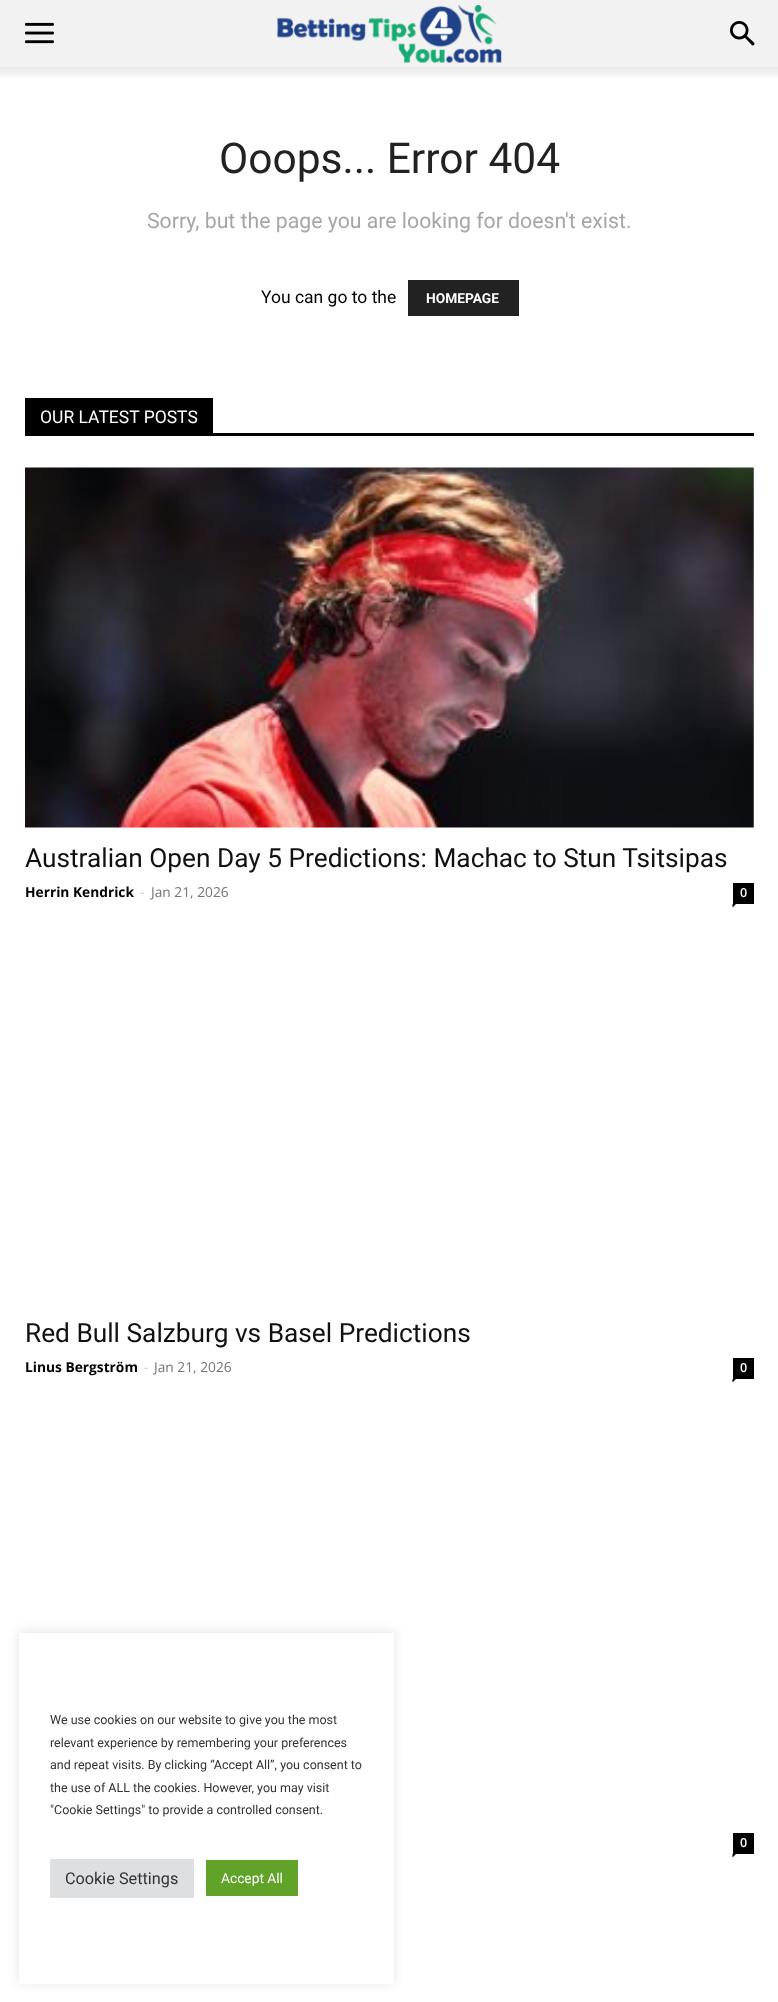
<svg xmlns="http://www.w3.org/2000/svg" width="778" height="2002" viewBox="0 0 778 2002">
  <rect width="100%" height="100%" fill="rgb(255,255,255)"/>
  <rect x="0" y="0" width="778" height="68" fill="rgb(242,242,242)"/>
  <image x="25" y="22" width="29" height="22" href="pic1.png"/>
  <image x="277" y="5" width="225" height="58" href="pic2.png"/>
  <image x="730" y="21" width="25" height="25" href="pic3.png"/>
  <image x="0" y="67" width="778" height="11" href="pic4.png"/>
  <text x="219" y="173" font-family="Roboto" font-size="42.5" fill="rgb(34,34,34)">Ooops... Error 404</text>
  <text x="147" y="228" font-family="Roboto" font-size="21.25" fill="rgb(166,166,166)">Sorry, but the page you are looking for doesn't exist.</text>
  <text x="261" y="303" font-family="Roboto" font-size="17.5" fill="rgb(0,0,0)">You can go to the</text>
  <rect x="408" y="280" width="111" height="36" fill="rgb(34,34,34)"/>
  <text x="426" y="303" font-family="Roboto" font-size="13.75" font-weight="bold" fill="rgb(255,255,255)">HOMEPAGE</text>
  <rect x="25" y="433" width="729" height="3" fill="rgb(0,0,0)"/>
  <rect x="25" y="398" width="188" height="35" fill="rgb(0,0,0)"/>
  <text x="40" y="423" font-family="Roboto" font-size="17.5" fill="rgb(255,255,255)">OUR LATEST POSTS</text>
  <image x="25" y="467" width="729" height="361" href="pic5.png"/>
  <text x="25" y="867" font-family="Roboto" font-size="26.25" fill="rgb(17,17,17)">Australian Open Day 5 Predictions: Machac to Stun Tsitsipas</text>
  <text x="25" y="897" font-family="Open Sans" font-size="13.75" font-weight="bold" fill="rgb(0,0,0)">Herrin Kendrick</text>
  <text x="140" y="897" font-family="Open Sans" font-size="13.75" fill="rgb(204,204,204)">-</text>
  <text x="151" y="897" font-family="Open Sans" font-size="13.75" fill="rgb(118,118,118)">Jan 21, 2026</text>
  <rect x="733" y="883" width="21" height="21" fill="rgb(0,0,0)"/>
  <text x="740" y="897" font-family="Open Sans" font-size="12.5" font-weight="600" fill="rgb(255,255,255)">0</text>
  <path d="M732.5 904H736L732.5 907.5Z" fill="rgb(0,0,0)"/>
  <text x="25" y="1342" font-family="Roboto" font-size="26.25" fill="rgb(17,17,17)">Red Bull Salzburg vs Basel Predictions</text>
  <text x="25" y="1372" font-family="Open Sans" font-size="13.75" font-weight="bold" fill="rgb(0,0,0)">Linus Bergström</text>
  <text x="144" y="1372" font-family="Open Sans" font-size="13.75" fill="rgb(204,204,204)">-</text>
  <text x="154" y="1372" font-family="Open Sans" font-size="13.75" fill="rgb(118,118,118)">Jan 21, 2026</text>
  <rect x="733" y="1358" width="21" height="21" fill="rgb(0,0,0)"/>
  <text x="740" y="1372" font-family="Open Sans" font-size="12.5" font-weight="600" fill="rgb(255,255,255)">0</text>
  <path d="M732.5 1379H736L732.5 1382.5Z" fill="rgb(0,0,0)"/>
  <rect x="733" y="1833" width="21" height="21" fill="rgb(0,0,0)"/>
  <text x="740" y="1847" font-family="Open Sans" font-size="12.5" font-weight="600" fill="rgb(255,255,255)">0</text>
  <path d="M732.5 1854H736L732.5 1857.5Z" fill="rgb(0,0,0)"/>
  <rect x="19" y="1631" width="375" height="352" fill="rgba(172,171,171,0.3)" filter="blur(6px)"/>
  <rect x="19" y="1633" width="375" height="351" fill="rgb(255,255,255)"/>
  <g font-family="Roboto" font-size="12.5" fill="rgb(51,51,51)">
    <text>
      <tspan x="50" y="1724">We use cookies on our website to give you the most</tspan>
      <tspan x="50" y="1747">relevant experience by remembering your preferences</tspan>
      <tspan x="50" y="1769">and repeat visits. By clicking “Accept All”, you consent to</tspan>
      <tspan x="50" y="1792">the use of ALL the cookies. However, you may visit</tspan>
      <tspan x="50" y="1814">"Cookie Settings" to provide a controlled consent.</tspan>
    </text>
  </g>
  <rect x="50" y="1859" width="144" height="39" fill="rgb(222,223,224)"/>
  <text x="65" y="1884" font-family="Roboto" font-size="16.25" fill="rgb(51,51,51)">Cookie Settings</text>
  <rect x="206" y="1860" width="92" height="36" fill="rgb(97,162,41)"/>
  <text x="221" y="1883" font-family="Roboto" font-size="13.75" fill="rgb(255,255,255)">Accept All</text>
</svg>
